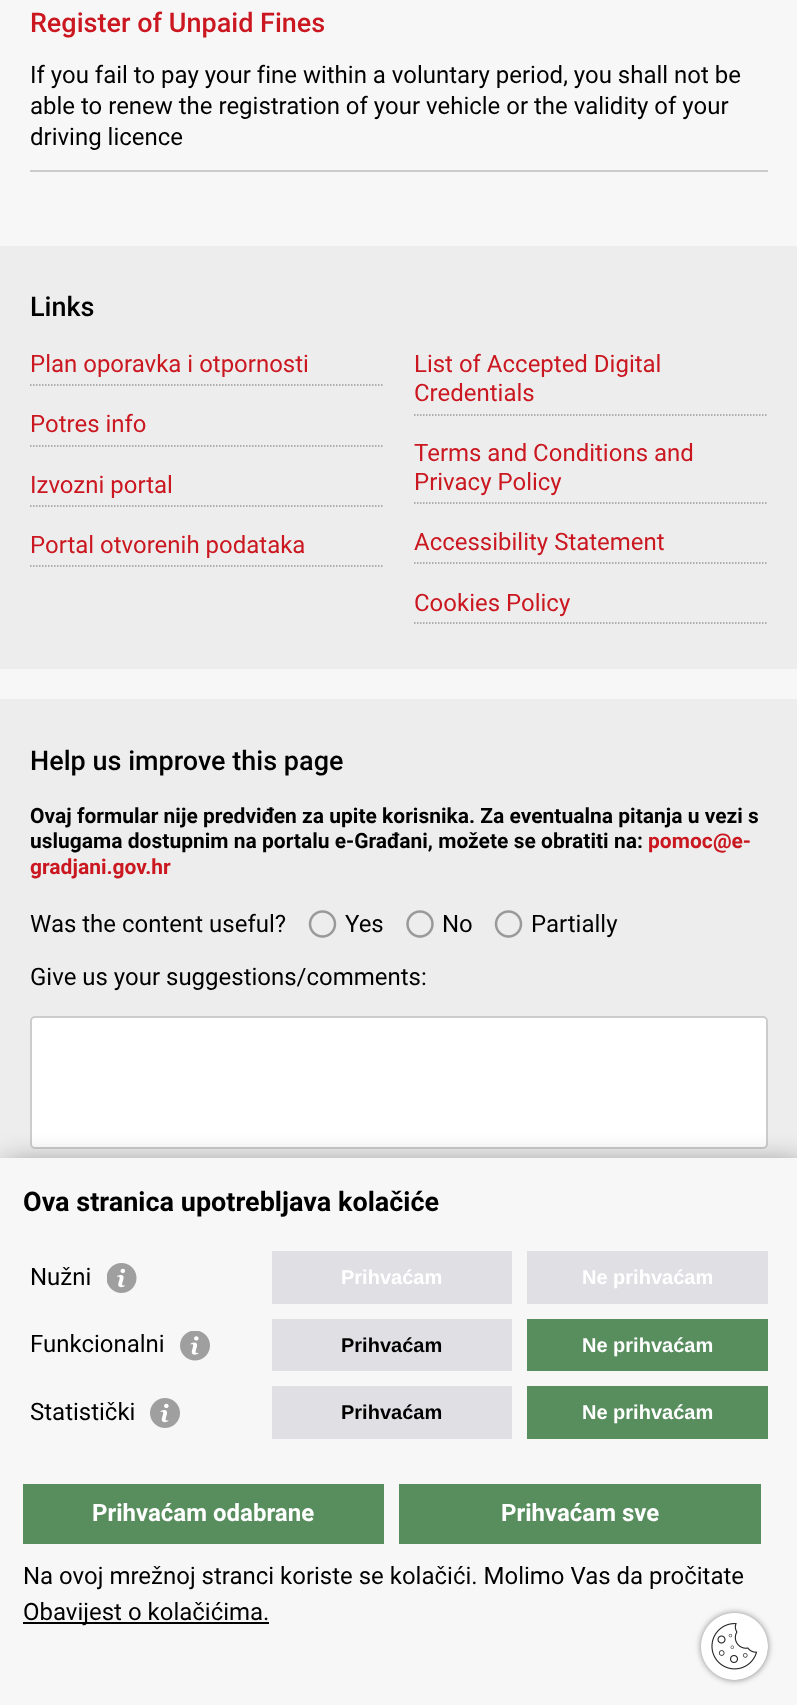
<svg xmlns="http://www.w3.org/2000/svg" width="797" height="1705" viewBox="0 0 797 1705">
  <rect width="100%" height="100%" fill="rgb(247,247,247)"/>
  <rect x="30" y="170" width="738" height="2" fill="rgb(204,204,204)"/>
  <text x="30" y="32" font-family="Roboto" font-size="27" font-weight="500" fill="rgb(202,23,32)">Register of Unpaid Fines</text>
  <g font-family="Roboto" font-size="24" fill="rgb(0,0,0)">
    <text>
      <tspan x="30" y="83">If you fail to pay your fine within a voluntary period, you shall not be</tspan>
      <tspan x="30" y="114">able to renew the registration of your vehicle or the validity of your</tspan>
      <tspan x="30" y="145">driving licence</tspan>
    </text>
  </g>
  <rect x="0" y="246" width="797" height="423" fill="rgb(237,237,237)"/>
  <text x="30" y="316" font-family="Roboto" font-size="27" font-weight="500" fill="rgb(0,0,0)">Links</text>
  <path d="M30 385H384" fill="none" stroke="rgb(153,153,153)" stroke-width="1.5" stroke-dasharray="1.5 1.5"/>
  <text x="30" y="372" font-family="Roboto" font-size="24" fill="rgb(202,23,32)">Plan oporavka i otpornosti</text>
  <path d="M414 415H768" fill="none" stroke="rgb(153,153,153)" stroke-width="1.5" stroke-dasharray="1.5 1.5"/>
  <g font-family="Roboto" font-size="24" fill="rgb(202,23,32)">
    <text>
      <tspan x="414" y="372">List of Accepted Digital</tspan>
      <tspan x="414" y="401">Credentials</tspan>
    </text>
  </g>
  <path d="M30 446H384" fill="none" stroke="rgb(153,153,153)" stroke-width="1.5" stroke-dasharray="1.5 1.5"/>
  <text x="30" y="432" font-family="Roboto" font-size="24" fill="rgb(202,23,32)">Potres info</text>
  <path d="M30 506H384" fill="none" stroke="rgb(153,153,153)" stroke-width="1.5" stroke-dasharray="1.5 1.5"/>
  <text x="30" y="493" font-family="Roboto" font-size="24" fill="rgb(202,23,32)">Izvozni portal</text>
  <path d="M414 503H768" fill="none" stroke="rgb(153,153,153)" stroke-width="1.5" stroke-dasharray="1.5 1.5"/>
  <g font-family="Roboto" font-size="24" fill="rgb(202,23,32)">
    <text>
      <tspan x="414" y="461">Terms and Conditions and</tspan>
      <tspan x="414" y="490">Privacy Policy</tspan>
    </text>
  </g>
  <path d="M30 566H384" fill="none" stroke="rgb(153,153,153)" stroke-width="1.5" stroke-dasharray="1.5 1.5"/>
  <text x="30" y="553" font-family="Roboto" font-size="24" fill="rgb(202,23,32)">Portal otvorenih podataka</text>
  <path d="M414 563H768" fill="none" stroke="rgb(153,153,153)" stroke-width="1.5" stroke-dasharray="1.5 1.5"/>
  <text x="414" y="550" font-family="Roboto" font-size="24" fill="rgb(202,23,32)">Accessibility Statement</text>
  <path d="M414 623H768" fill="none" stroke="rgb(153,153,153)" stroke-width="1.5" stroke-dasharray="1.5 1.5"/>
  <text x="414" y="611" font-family="Roboto" font-size="24" fill="rgb(202,23,32)">Cookies Policy</text>
  <rect x="0" y="699" width="797" height="459" fill="rgb(237,237,237)"/>
  <text x="30" y="770" font-family="Roboto" font-size="27" font-weight="500" fill="rgb(0,0,0)">Help us improve this page</text>
  <g font-family="Roboto" font-size="21" font-weight="bold" fill="rgb(0,0,0)">
    <text>
      <tspan x="30" y="823">Ovaj formular nije predviđen za upite korisnika. Za eventualna pitanja u vezi s</tspan>
      <tspan x="30" y="848">uslugama dostupnim na portalu e-Građani, možete se obratiti na:</tspan>
    </text>
  </g>
  <g font-family="Roboto" font-size="21" font-weight="bold" fill="rgb(202,23,32)">
    <text x="648" y="848">pomoc@e-</text>
    <text x="30" y="874">gradjani.gov.hr</text>
  </g>
  <text x="30" y="932" font-family="Roboto" font-size="24" fill="rgb(0,0,0)">Was the content useful?</text>
  <image x="308" y="910" width="29" height="28" href="pic1.png"/>
  <text x="345" y="932" font-family="Roboto" font-size="24" fill="rgb(0,0,0)">Yes</text>
  <image x="406" y="910" width="28" height="28" href="pic2.png"/>
  <text x="442" y="932" font-family="Roboto" font-size="24" fill="rgb(0,0,0)">No</text>
  <image x="494" y="910" width="29" height="28" href="pic1.png"/>
  <g font-family="Roboto" font-size="24" fill="rgb(0,0,0)">
    <text x="531" y="932">Partially</text>
    <text x="30" y="985">Give us your suggestions/comments:</text>
  </g>
  <rect x="31" y="1017" width="736" height="131" rx="4" fill="rgb(255,255,255)" stroke="rgb(204,204,204)" stroke-width="2"/>
  <rect x="5" y="1166" width="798" height="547" fill="rgba(0,0,0,0.5)" filter="blur(15px)"/>
  <rect x="0" y="1158" width="797" height="547" fill="rgb(247,247,247)"/>
  <text x="23" y="1211" font-family="Roboto" font-size="27" font-weight="bold" fill="rgb(0,0,0)">Ova stranica upotrebljava kolačiće</text>
  <text x="30" y="1285" font-family="Roboto" font-size="24" fill="rgb(0,0,0)">Nužni</text>
  <image x="107" y="1263" width="30" height="30" href="pic3.png"/>
  <rect x="272" y="1251" width="240" height="53" fill="rgb(224,224,228)"/>
  <text x="341" y="1284" font-family="Liberation Sans" font-size="20" font-weight="bold" fill="rgb(255,255,255)">Prihvaćam</text>
  <rect x="527" y="1251" width="241" height="53" fill="rgb(224,224,228)"/>
  <text x="582" y="1284" font-family="Liberation Sans" font-size="20" font-weight="bold" fill="rgb(255,255,255)">Ne prihvaćam</text>
  <text x="30" y="1352" font-family="Roboto" font-size="24" fill="rgb(0,0,0)">Funkcionalni</text>
  <image x="180" y="1331" width="30" height="30" href="pic4.png"/>
  <rect x="272" y="1319" width="240" height="52" fill="rgb(224,224,228)"/>
  <text x="341" y="1352" font-family="Liberation Sans" font-size="20" font-weight="bold" fill="rgb(0,0,0)">Prihvaćam</text>
  <rect x="527" y="1319" width="241" height="52" fill="rgb(88,142,94)"/>
  <text x="582" y="1352" font-family="Liberation Sans" font-size="20" font-weight="bold" fill="rgb(255,255,255)">Ne prihvaćam</text>
  <text x="30" y="1420" font-family="Roboto" font-size="24" fill="rgb(0,0,0)">Statistički</text>
  <image x="150" y="1398" width="30" height="30" href="pic5.png"/>
  <rect x="272" y="1386" width="240" height="53" fill="rgb(224,224,228)"/>
  <text x="341" y="1419" font-family="Liberation Sans" font-size="20" font-weight="bold" fill="rgb(0,0,0)">Prihvaćam</text>
  <rect x="527" y="1386" width="241" height="53" fill="rgb(88,142,94)"/>
  <text x="582" y="1419" font-family="Liberation Sans" font-size="20" font-weight="bold" fill="rgb(255,255,255)">Ne prihvaćam</text>
  <rect x="23" y="1484" width="361" height="60" fill="rgb(88,142,94)"/>
  <text x="92" y="1521" font-family="Roboto" font-size="24" font-weight="bold" fill="rgb(255,255,255)">Prihvaćam odabrane</text>
  <rect x="399" y="1484" width="362" height="60" fill="rgb(88,142,94)"/>
  <text x="501" y="1521" font-family="Roboto" font-size="24" font-weight="bold" fill="rgb(255,255,255)">Prihvaćam sve</text>
  <text x="23" y="1584" font-family="Roboto" font-size="24" fill="rgb(0,0,0)">Na ovoj mrežnoj stranci koriste se kolačići. Molimo Vas da pročitate</text>
  <rect x="23" y="1622" width="246" height="2" fill="rgb(0,0,0)"/>
  <text x="23" y="1620" font-family="Roboto" font-size="24" fill="rgb(0,0,0)">Obavijest o kolačićima.</text>
  <rect x="701" y="1613" width="67" height="67" rx="33.5" fill="rgb(133,133,133)" filter="blur(3px)"/>
  <image x="701" y="1613" width="67" height="67" href="pic6.png"/>
</svg>
